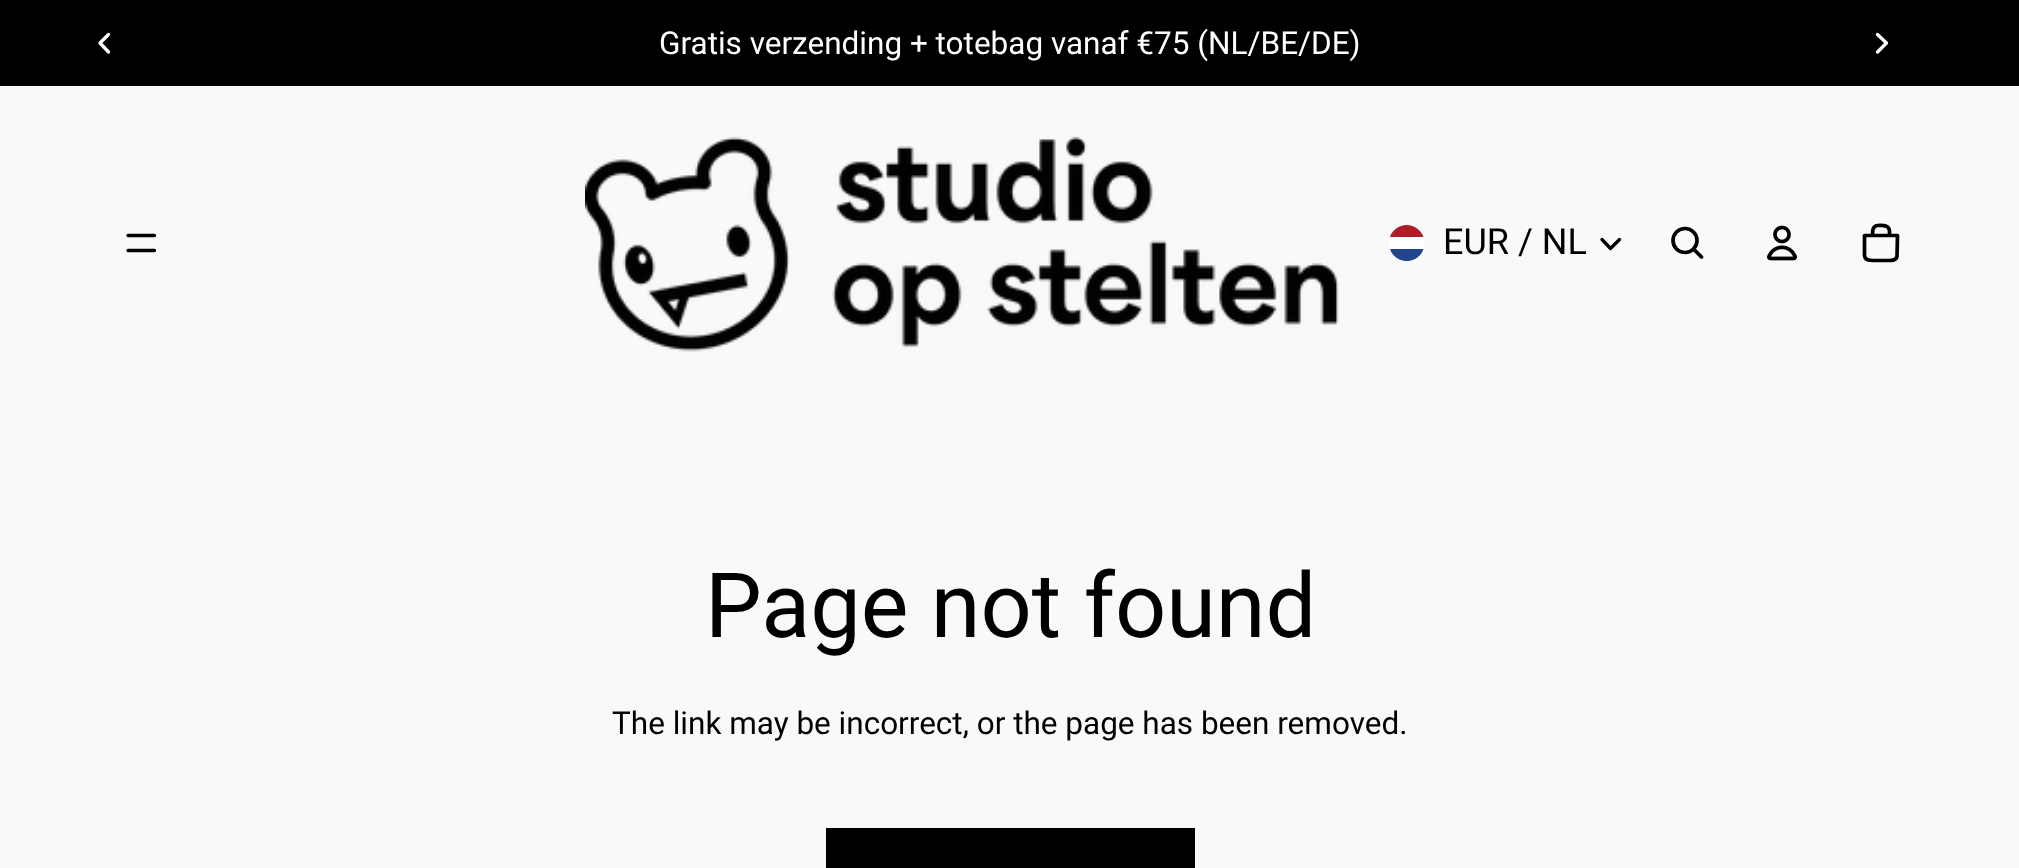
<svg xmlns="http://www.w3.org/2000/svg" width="2019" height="868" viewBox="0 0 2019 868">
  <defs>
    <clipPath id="clip1"><rect x="1388" y="225" width="36" height="36"/></clipPath>
  </defs>
  <rect width="100%" height="100%" fill="rgb(249,249,249)"/>
  <rect x="0" y="0" width="2019" height="86" fill="rgb(0,0,0)"/>
  <text x="659" y="54" font-family="Roboto" font-size="31.5" fill="rgb(255,255,255)">Gratis verzending + totebag vanaf €75 (NL/BE/DE)</text>
  <path d="M108.5 34.5L100 43L108.5 52" fill="none" stroke="rgb(255,255,255)" stroke-width="3.3" stroke-linecap="round" stroke-linejoin="round"/>
  <path d="M1877.5 34.5L1886.5 43L1877.5 52" fill="none" stroke="rgb(255,255,255)" stroke-width="3.3" stroke-linecap="round" stroke-linejoin="round"/>
  <path d="M128 235.5H154.5M128 250.5H154.5" fill="none" stroke="rgb(0,0,0)" stroke-width="3.3" stroke-linecap="round"/>
  <image x="585" y="136" width="754" height="216" href="pic1.png"/>
  <g clip-path="url(#clip1)">
    <path d="M1406.5 225C1416.5 225 1424.5 233 1424.5 243C1424.5 253 1416.5 261 1406.5 261C1397 261 1388.5 253 1388.5 243C1388.5 233 1397 225 1406.5 225Z" fill="rgb(255,255,255)"/>
  </g>
  <path d="M1423.5 249C1418 265 1395.5 265 1390 249Z" fill="rgb(33,70,139)"/>
  <path d="M1406.5 225C1414.5 225 1421 230 1423.5 237H1390C1392 230 1399 225 1406.5 225Z" fill="rgb(174,28,40)"/>
  <text x="1443" y="254" font-family="Roboto" font-size="36" fill="rgb(0,0,0)">EUR / NL</text>
  <path d="M1619.5 239.5L1610.5 248.5L1602 239.5" fill="none" stroke="rgb(0,0,0)" stroke-width="3.3" stroke-linecap="round" stroke-linejoin="round"/>
  <circle cx="1685" cy="240.5" r="12" fill="none" stroke="rgb(0,0,0)" stroke-width="3.7"/>
  <path d="M1693.5 249L1701.5 257" fill="none" stroke="rgb(0,0,0)" stroke-width="3.7" stroke-linecap="round" stroke-linejoin="round"/>
  <image x="1767" y="225" width="30" height="36" href="pic2.png"/>
  <path d="M1864.5 235.5H1897.5L1897 256.5C1896 260.5 1892 260.5 1888.5 260.5H1873.5C1869.5 260.5 1864.5 260.5 1864.5 255ZM1878 225.5C1882.5 225.5 1888.5 224.5 1889.5 230.5V235.5H1872.5C1872.5 231 1872.5 225.5 1878 225.5" fill="none" stroke="rgb(0,0,0)" stroke-width="3.7" stroke-linecap="round" stroke-linejoin="round"/>
  <text x="705" y="637" font-family="Roboto" font-size="90" fill="rgb(0,0,0)">Page not found</text>
  <text x="612" y="734" font-family="Roboto" font-size="31.5" fill="rgb(0,0,0)">The link may be incorrect, or the page has been removed.</text>
  <rect x="826" y="828" width="369" height="40" fill="rgb(0,0,0)"/>
</svg>
